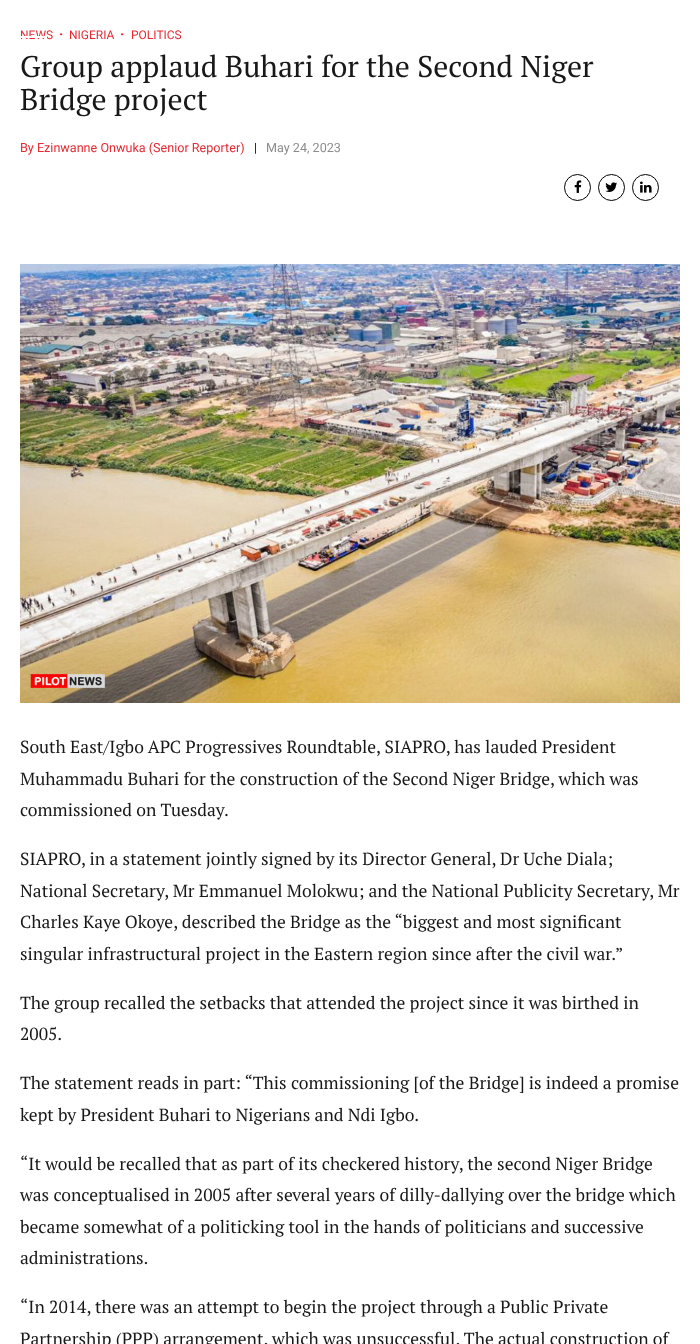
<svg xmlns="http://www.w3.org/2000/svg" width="700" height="1344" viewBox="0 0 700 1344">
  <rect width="100%" height="100%" fill="rgb(255,255,255)"/>
  <text x="20" y="39" font-family="Roboto" font-size="12" fill="rgb(230,43,52)">NEWS</text>
  <text x="59" y="39" font-family="Roboto" font-size="14" font-weight="800" fill="rgb(230,43,52)">·</text>
  <text x="69" y="39" font-family="Roboto" font-size="12" fill="rgb(230,43,52)">NIGERIA</text>
  <text x="120" y="39" font-family="Roboto" font-size="14" font-weight="800" fill="rgb(230,43,52)">·</text>
  <text x="131" y="39" font-family="Roboto" font-size="12" fill="rgb(230,43,52)">POLITICS</text>
  <g font-family="PT Serif" font-size="30" fill="rgb(24,24,24)">
    <text>
      <tspan x="20" y="77">Group applaud Buhari for the Second Niger</tspan>
      <tspan x="20" y="110">Bridge project</tspan>
    </text>
  </g>
  <text x="20" y="152" font-family="Roboto" font-size="12.6" fill="rgb(230,43,52)">By Ezinwanne Onwuka (Senior Reporter)</text>
  <text x="254" y="152" font-family="Roboto" font-size="12.6" fill="rgb(24,24,24)">|</text>
  <text x="266" y="152" font-family="Roboto" font-size="12.6" fill="rgb(140,140,140)">May 24, 2023</text>
  <circle cx="577.5" cy="187.5" r="13" fill="none" stroke="rgb(0,0,0)"/>
  <image x="574" y="180" width="8" height="13" href="pic1.png"/>
  <circle cx="611.5" cy="187.5" r="13" fill="none" stroke="rgb(0,0,0)"/>
  <image x="605" y="182" width="12" height="10" href="pic2.png"/>
  <circle cx="645.5" cy="187.5" r="13" fill="none" stroke="rgb(0,0,0)"/>
  <image x="640" y="181" width="12" height="12" href="pic3.png"/>
  <image x="20" y="264" width="660" height="439" href="pic4.png"/>
  <g font-family="PT Serif" font-size="17.5" fill="rgb(24,24,24)">
    <text>
      <tspan x="20" y="753">South East/Igbo APC Progressives Roundtable, SIAPRO, has lauded President</tspan>
      <tspan x="20" y="785">Muhammadu Buhari for the construction of the Second Niger Bridge, which was</tspan>
      <tspan x="20" y="816">commissioned on Tuesday.</tspan>
    </text>
    <text>
      <tspan x="20" y="865">SIAPRO, in a statement jointly signed by its Director General, Dr Uche Diala;</tspan>
      <tspan x="20" y="897">National Secretary, Mr Emmanuel Molokwu; and the National Publicity Secretary, Mr</tspan>
      <tspan x="20" y="928">Charles Kaye Okoye, described the Bridge as the “biggest and most significant</tspan>
      <tspan x="20" y="960">singular infrastructural project in the Eastern region since after the civil war.”</tspan>
    </text>
    <text>
      <tspan x="20" y="1009">The group recalled the setbacks that attended the project since it was birthed in</tspan>
      <tspan x="20" y="1040">2005.</tspan>
    </text>
    <text>
      <tspan x="20" y="1089">The statement reads in part: “This commissioning [of the Bridge] is indeed a promise</tspan>
      <tspan x="20" y="1121">kept by President Buhari to Nigerians and Ndi Igbo.</tspan>
    </text>
    <text>
      <tspan x="20" y="1170">“It would be recalled that as part of its checkered history, the second Niger Bridge</tspan>
      <tspan x="20" y="1201">was conceptualised in 2005 after several years of dilly-dallying over the bridge which</tspan>
      <tspan x="20" y="1233">became somewhat of a politicking tool in the hands of politicians and successive</tspan>
      <tspan x="20" y="1264">administrations.</tspan>
    </text>
    <text>
      <tspan x="20" y="1313">“In 2014, there was an attempt to begin the project through a Public Private</tspan>
      <tspan x="20" y="1345">Partnership (PPP) arrangement, which was unsuccessful. The actual construction of</tspan>
    </text>
  </g>
  <rect x="20" y="36" width="27" height="2" fill="rgb(255,255,255)"/>
</svg>
